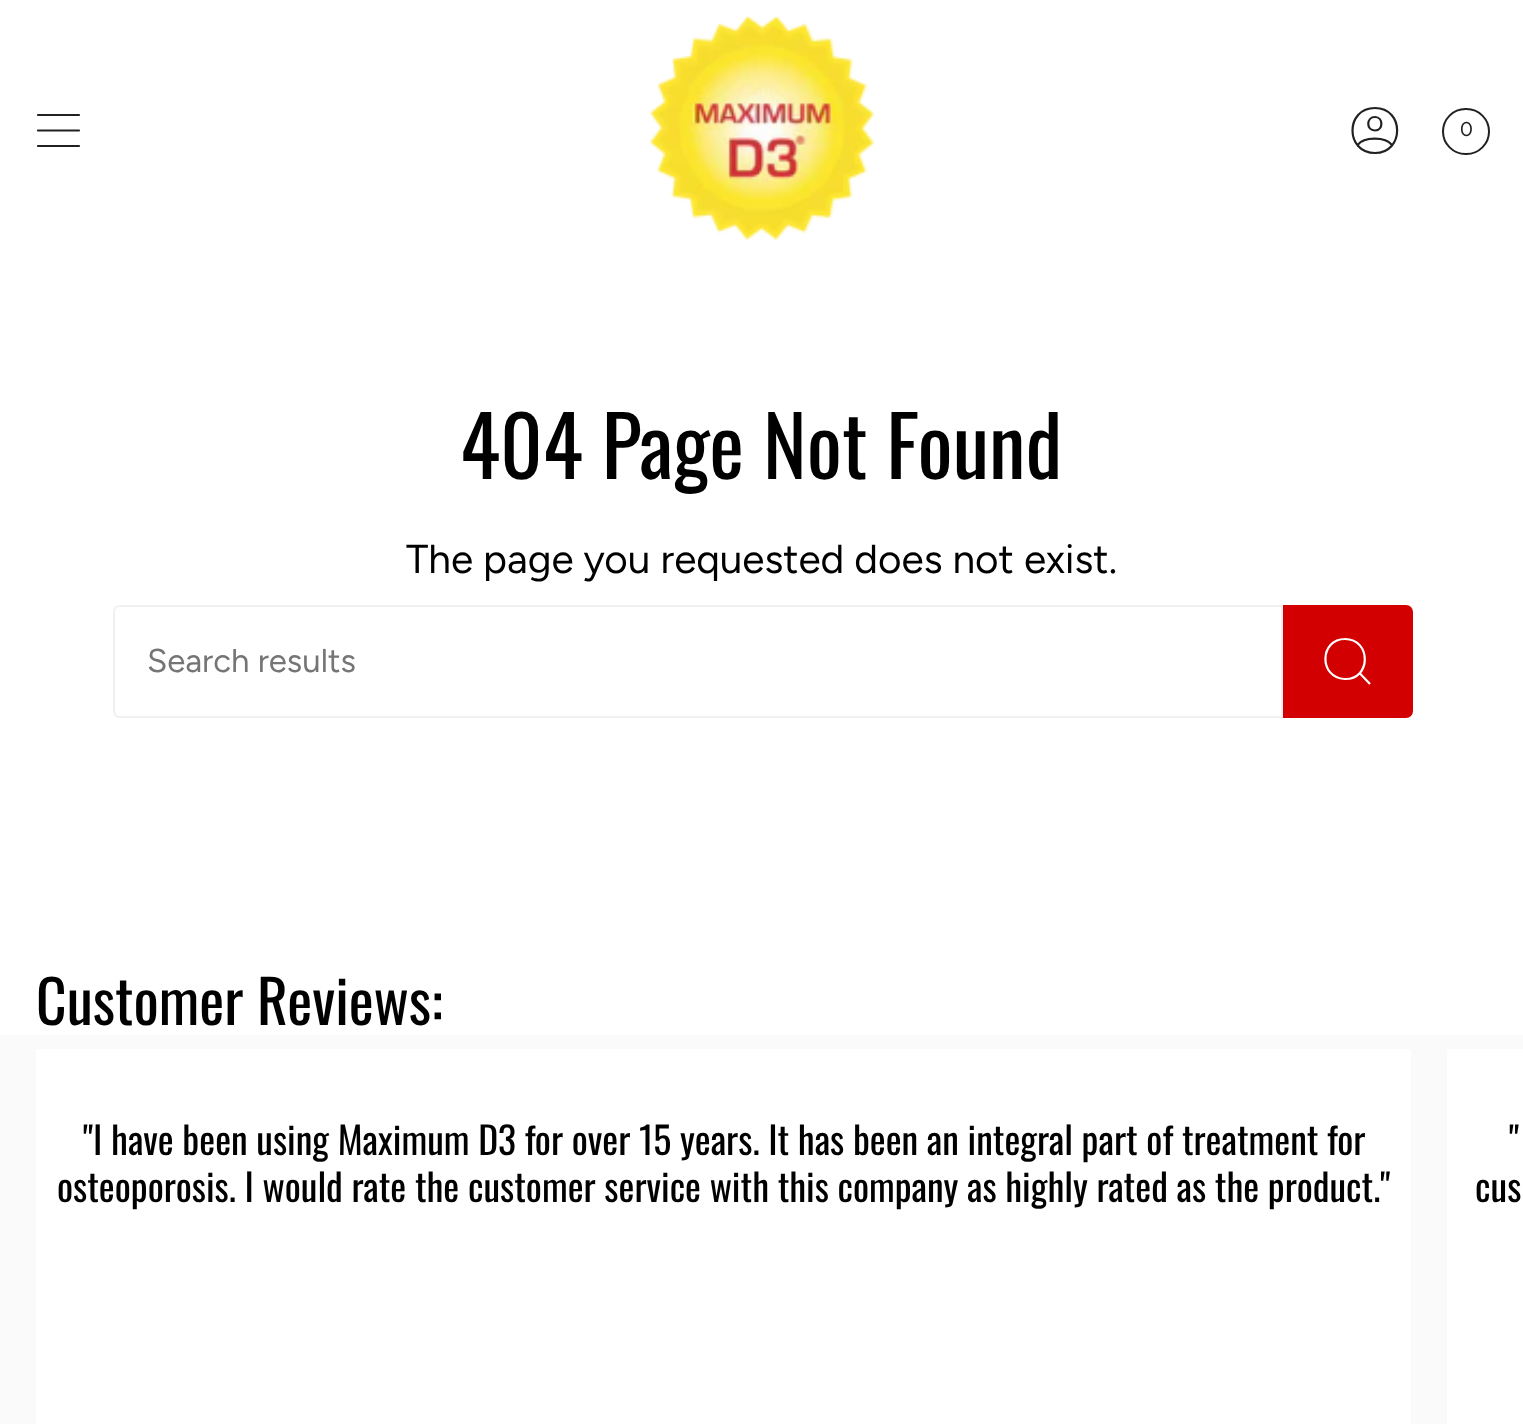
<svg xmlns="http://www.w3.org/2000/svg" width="1523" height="1424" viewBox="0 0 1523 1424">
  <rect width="100%" height="100%" fill="rgb(255,255,255)"/>
  <path d="M38 115H79M38 130.5H79M38 146H79" fill="none" stroke="rgb(33,33,33)" stroke-width="2.2" stroke-linecap="round" stroke-linejoin="round"/>
  <image x="649" y="15" width="227" height="226" href="pic1.png"/>
  <path d="M1375 108C1345 108 1345 153 1375 153C1404.5 153 1404.5 108 1375 108ZM1357.5 145C1364 136.5 1385.5 136.5 1392 145M1375 130.5C1383.5 130.5 1383.5 117 1375 117C1366 117 1366 130.5 1375 130.5Z" fill="none" stroke="rgb(33,33,33)" stroke-width="2.2" stroke-linecap="round" stroke-linejoin="round"/>
  <rect x="1443" y="109" width="46" height="45" rx="22.5" fill="none" stroke="rgb(33,33,33)" stroke-width="2"/>
  <text x="1460" y="136" font-family="Figtree" font-size="20" fill="rgb(33,33,33)">0</text>
  <text x="460" y="479" font-family="Oswald" font-size="82.75" fill="rgb(0,0,0)">404 Page Not Found</text>
  <text x="406" y="573" font-family="Figtree" font-size="40.5" fill="rgb(0,0,0)">The page you requested does not exist.</text>
  <path d="M120 606H1282V717H120C116.5 717 114 714.5 114 711V612C114 608.5 116.5 606 120 606Z" fill="none" stroke="rgb(240,240,240)" stroke-width="2"/>
  <text x="147" y="672" font-family="Figtree" font-size="33" fill="rgb(117,117,117)">Search results</text>
  <path d="M1284 606H1406C1409.5 606 1412 608.5 1412 612V711C1412 714.5 1409.5 717 1406 717H1284Z" fill="rgb(210,0,0)" stroke="rgb(210,0,0)" stroke-width="2"/>
  <path d="M1345 639C1371.5 639 1371.5 680 1344.5 679C1318.5 677.5 1319.5 639 1345 639ZM1359.5 673L1370 684" fill="none" stroke="rgb(255,255,255)" stroke-width="2.2"/>
  <text x="36" y="1025" font-family="Oswald" font-size="59.5" fill="rgb(0,0,0)">Customer Reviews:</text>
  <rect x="0" y="1035" width="1523" height="389" fill="rgb(250,250,250)"/>
  <rect x="36" y="1049" width="1375" height="375" fill="rgb(255,255,255)"/>
  <g font-family="Oswald" font-size="37.8" fill="rgb(0,0,0)">
    <text x="83" y="1155">"I have been using Maximum D3 for over 15 years. It has been an integral part of treatment for</text>
    <text x="57" y="1202">osteoporosis. I would rate the customer service with this company as highly rated as the product."</text>
  </g>
  <rect x="1447" y="1049" width="76" height="375" fill="rgb(255,255,255)"/>
  <g font-family="Oswald" font-size="37.8" fill="rgb(0,0,0)">
    <text x="1509" y="1155">"</text>
    <text x="1475" y="1202">cus</text>
  </g>
</svg>
